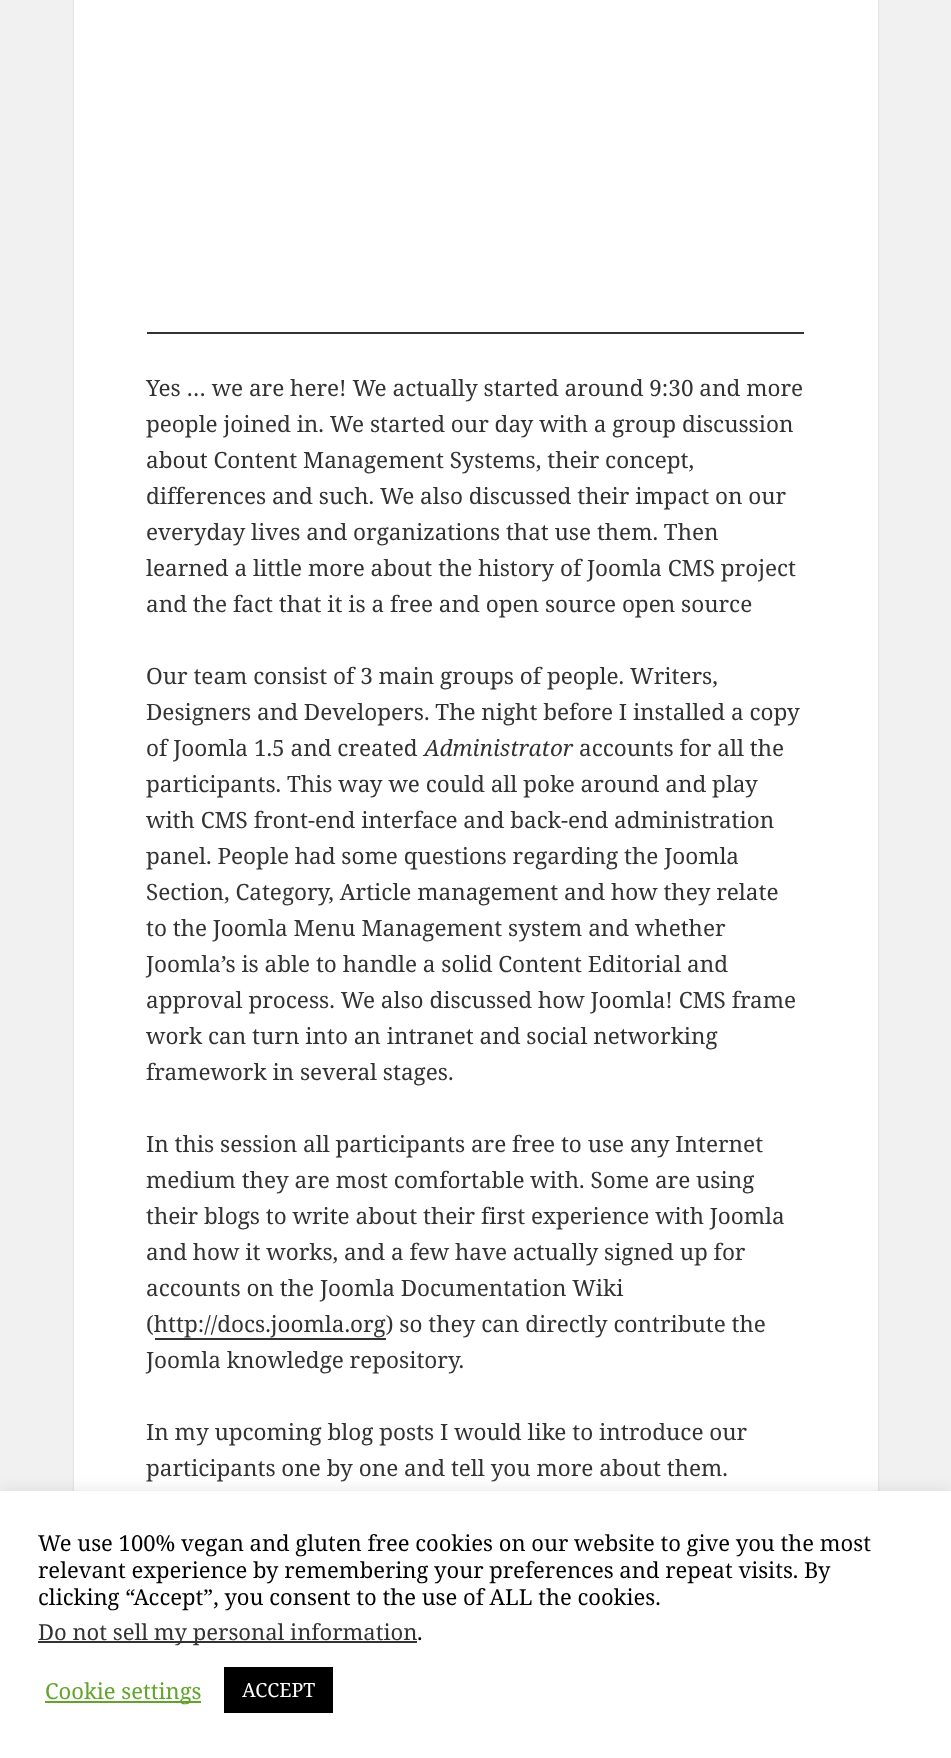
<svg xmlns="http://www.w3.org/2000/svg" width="951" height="1758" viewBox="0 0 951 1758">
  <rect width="100%" height="100%" fill="rgb(241,241,241)"/>
  <rect x="74" y="-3" width="804" height="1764" fill="rgba(0,0,0,0.15)" filter="blur(1px)"/>
  <rect x="74" y="0" width="804" height="1491" fill="rgb(255,255,255)"/>
  <rect x="147" y="332" width="657" height="2" fill="rgb(51,51,51)"/>
  <g font-family="Noto Serif" font-size="22.5" fill="rgb(51,51,51)">
    <text>
      <tspan x="146" y="396">Yes … we are here! We actually started around 9:30 and more</tspan>
      <tspan x="146" y="432">people joined in. We started our day with a group discussion</tspan>
      <tspan x="146" y="468">about Content Management Systems, their concept,</tspan>
      <tspan x="146" y="504">differences and such. We also discussed their impact on our</tspan>
      <tspan x="146" y="540">everyday lives and organizations that use them. Then</tspan>
      <tspan x="146" y="576">learned a little more about the history of Joomla CMS project</tspan>
      <tspan x="146" y="612">and the fact that it is a free and open source open source</tspan>
    </text>
    <text>
      <tspan x="146" y="684">Our team consist of 3 main groups of people. Writers,</tspan>
      <tspan x="146" y="720">Designers and Developers. The night before I installed a copy</tspan>
      <tspan x="146" y="756">of Joomla 1.5 and created</tspan>
    </text>
  </g>
  <text x="424" y="756" font-family="Noto Serif" font-size="22.5" font-style="italic" fill="rgb(51,51,51)">Administrator</text>
  <g font-family="Noto Serif" font-size="22.5" fill="rgb(51,51,51)">
    <text x="579" y="756">accounts for all the</text>
    <text>
      <tspan x="146" y="792">participants. This way we could all poke around and play</tspan>
      <tspan x="146" y="828">with CMS front-end interface and back-end administration</tspan>
      <tspan x="146" y="864">panel. People had some questions regarding the Joomla</tspan>
      <tspan x="146" y="900">Section, Category, Article management and how they relate</tspan>
      <tspan x="146" y="936">to the Joomla Menu Management system and whether</tspan>
      <tspan x="146" y="972">Joomla’s is able to handle a solid Content Editorial and</tspan>
      <tspan x="146" y="1008">approval process. We also discussed how Joomla! CMS frame</tspan>
      <tspan x="146" y="1044">work can turn into an intranet and social networking</tspan>
      <tspan x="146" y="1080">framework in several stages.</tspan>
    </text>
    <text>
      <tspan x="146" y="1152">In this session all participants are free to use any Internet</tspan>
      <tspan x="146" y="1188">medium they are most comfortable with. Some are using</tspan>
      <tspan x="146" y="1224">their blogs to write about their first experience with Joomla</tspan>
      <tspan x="146" y="1260">and how it works, and a few have actually signed up for</tspan>
      <tspan x="146" y="1296">accounts on the Joomla Documentation Wiki</tspan>
      <tspan x="146" y="1332">(http://docs.joomla.org) so they can directly contribute the</tspan>
    </text>
  </g>
  <rect x="155" y="1338" width="231" height="2" fill="rgb(51,51,51)"/>
  <g font-family="Noto Serif" font-size="22.5" fill="rgb(51,51,51)">
    <text x="146" y="1368">Joomla knowledge repository.</text>
    <text>
      <tspan x="146" y="1440">In my upcoming blog posts I would like to introduce our</tspan>
      <tspan x="146" y="1476">participants one by one and tell you more about them.</tspan>
    </text>
  </g>
  <rect x="0" y="1490" width="951" height="267" fill="rgba(172,171,171,0.3)" filter="blur(7.5px)"/>
  <rect x="0" y="1491" width="951" height="267" fill="rgb(255,255,255)"/>
  <g font-family="Noto Serif" font-size="22" fill="rgb(0,0,0)">
    <text>
      <tspan x="38" y="1551">We use 100% vegan and gluten free cookies on our website to give you the most</tspan>
      <tspan x="38" y="1578">relevant experience by remembering your preferences and repeat visits. By</tspan>
      <tspan x="38" y="1605">clicking “Accept”, you consent to the use of ALL the cookies.</tspan>
    </text>
  </g>
  <rect x="38" y="1641" width="379" height="2" fill="rgb(51,51,51)"/>
  <text x="38" y="1640" font-family="Noto Serif" font-size="22" fill="rgb(51,51,51)">Do not sell my personal information</text>
  <text x="417" y="1640" font-family="Noto Serif" font-size="22" fill="rgb(0,0,0)">.</text>
  <rect x="45" y="1701" width="156" height="2" fill="rgb(98,163,41)"/>
  <text x="45" y="1699" font-family="Noto Serif" font-size="22" fill="rgb(98,163,41)">Cookie settings</text>
  <rect x="224" y="1667" width="109" height="46" fill="rgb(0,0,0)"/>
  <text x="242" y="1697" font-family="Noto Serif" font-size="19.5" fill="rgb(255,255,255)">ACCEPT</text>
</svg>
